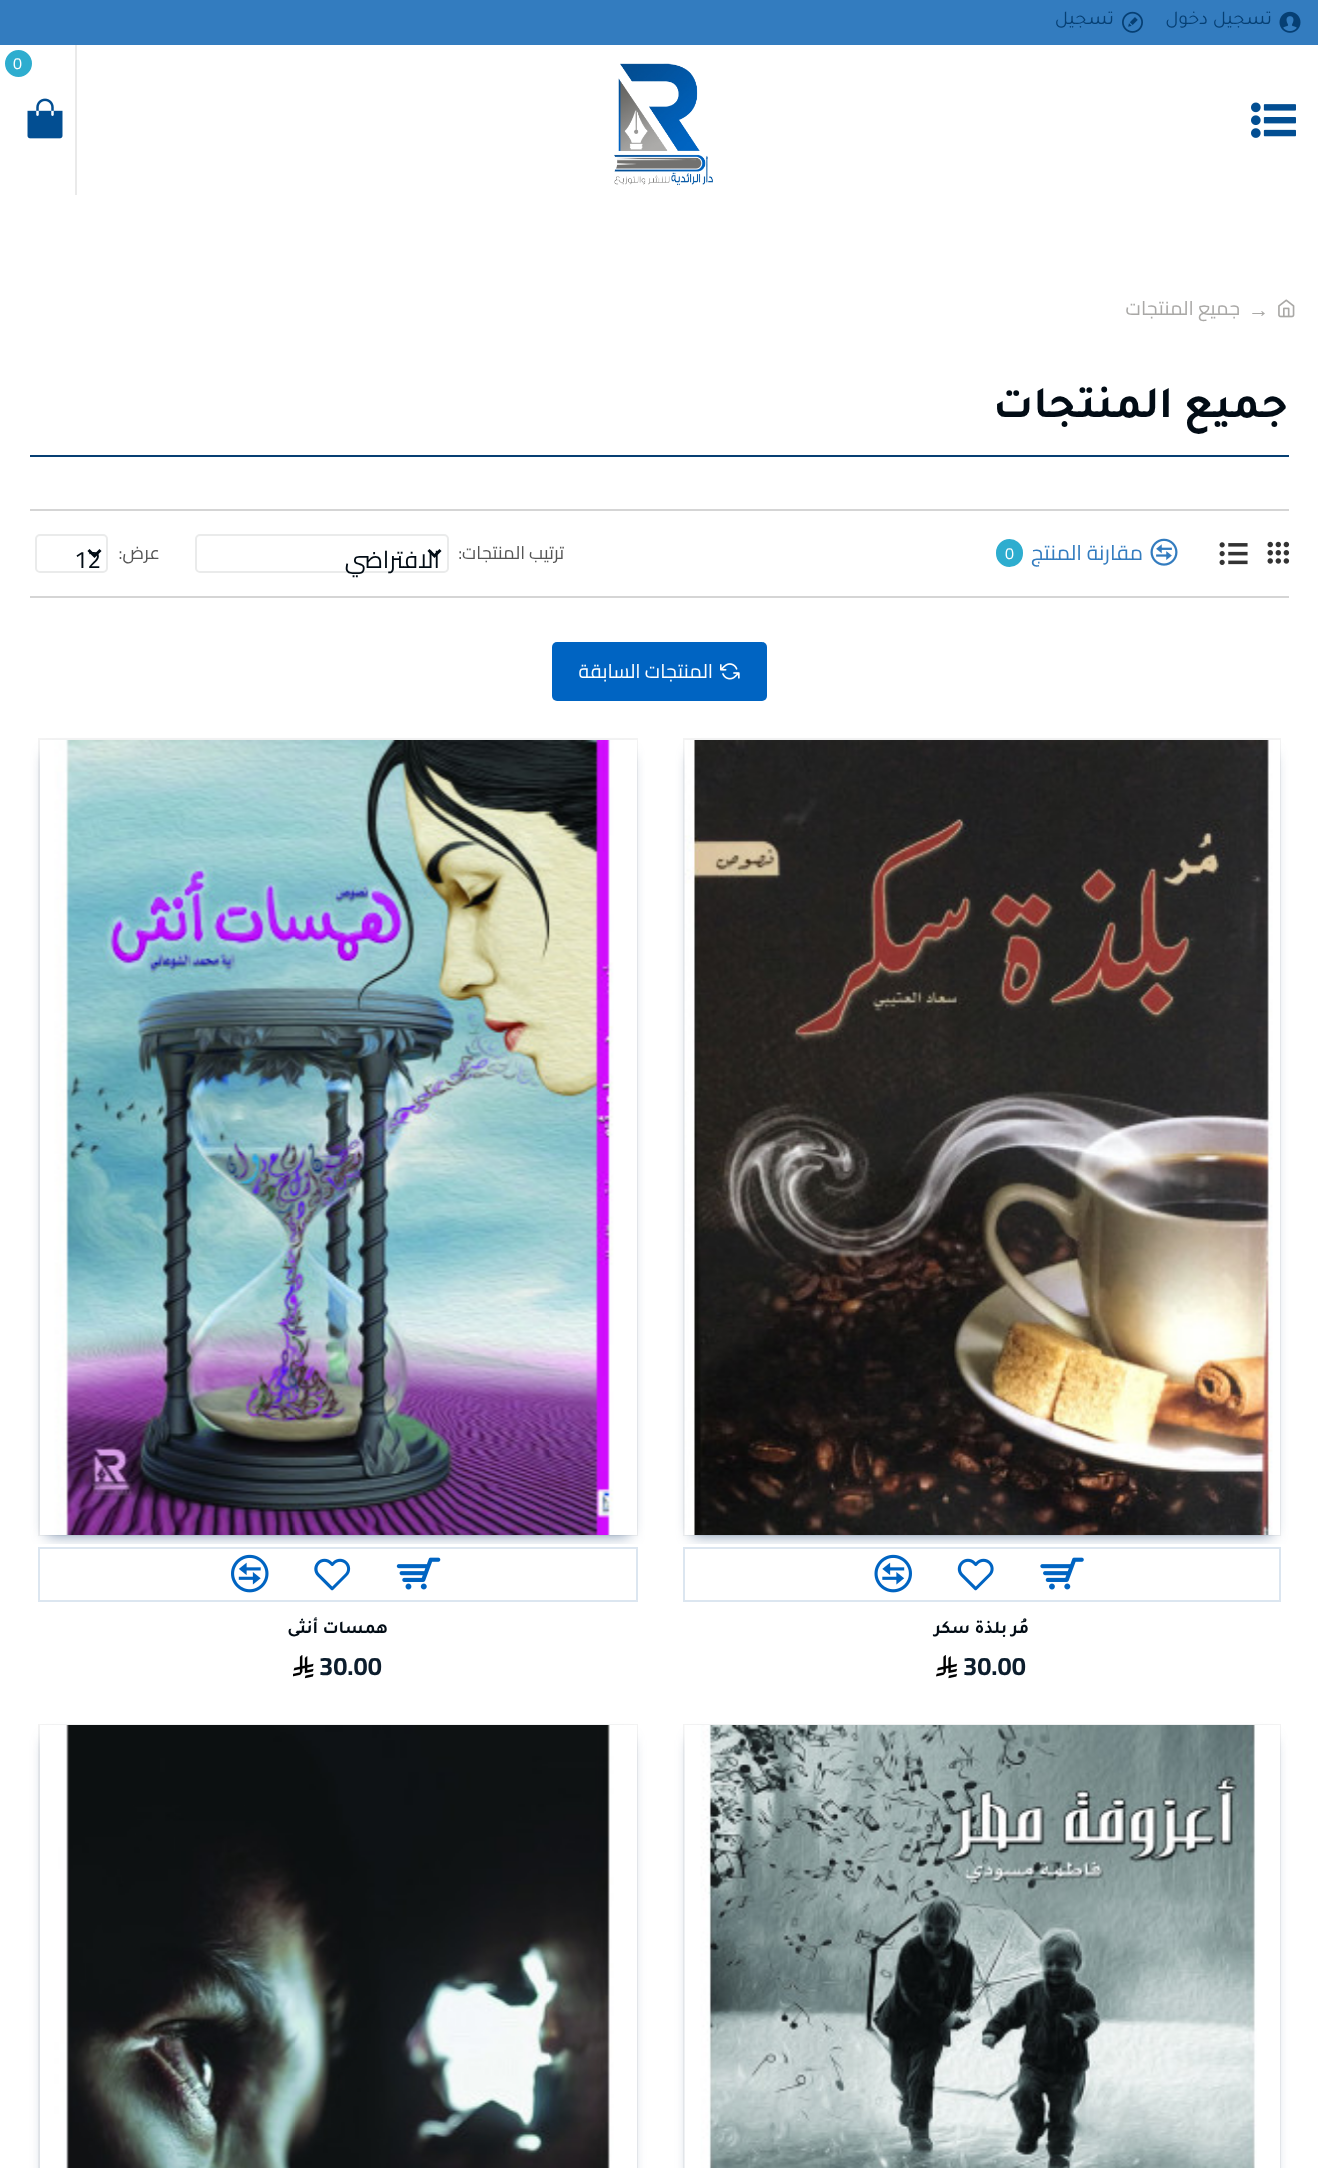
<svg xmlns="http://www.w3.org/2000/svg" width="1318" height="2168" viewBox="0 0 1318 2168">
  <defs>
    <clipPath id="clip1"><rect x="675" y="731" width="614" height="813"/></clipPath>
    <clipPath id="clip2"><rect x="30" y="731" width="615" height="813"/></clipPath>
  </defs>
  <rect width="100%" height="100%" fill="rgb(255,255,255)"/>
  <rect x="0" y="0" width="1318" height="45" fill="rgb(51,124,191)"/>
  <image x="1279" y="11" width="22" height="22" href="pic1.png"/>
  <text x="1272" y="24" font-family="Tajawal" font-size="19.5" direction="rtl" fill="rgb(6,63,115)">تسجيل دخول</text>
  <image x="1122" y="11" width="21" height="22" href="pic2.png"/>
  <text x="1114" y="24" font-family="Tajawal" font-size="19.5" direction="rtl" fill="rgb(6,63,115)">تسجيل</text>
  <image x="1251" y="102" width="45" height="36" href="pic3.png"/>
  <image x="614" y="63" width="99" height="123" href="pic4.png"/>
  <rect x="75" y="45" width="2" height="150" fill="rgb(234,234,234)"/>
  <circle cx="18.5" cy="63.5" r="12" fill="rgb(46,173,207)" stroke="rgb(46,173,207)" stroke-width="3"/>
  <text x="13" y="69" font-family="Cairo" font-size="16" fill="rgb(255,255,255)">0</text>
  <image x="27" y="98" width="36" height="41" href="pic5.png"/>
  <image x="1278" y="299" width="17" height="19" href="pic6.png"/>
  <text x="1248" y="317" font-family="Liberation Serif" font-size="21" fill="rgb(169,168,166)">→</text>
  <text x="1240" y="315" font-family="Cairo" font-size="19.5" direction="rtl" fill="rgb(169,168,166)">جميع المنتجات</text>
  <rect x="30" y="455" width="1259" height="2" fill="rgb(6,63,115)"/>
  <text x="1288" y="417" font-family="Tajawal" font-size="45" font-weight="bold" direction="rtl" fill="rgb(2,12,21)">جميع المنتجات</text>
  <rect x="30" y="509" width="1259" height="2" fill="rgb(213,213,213)"/>
  <rect x="30" y="596" width="1259" height="2" fill="rgb(213,213,213)"/>
  <image x="1267" y="541" width="23" height="23" href="pic7.png"/>
  <image x="1219" y="542" width="29" height="23" href="pic8.png"/>
  <image x="1150" y="538" width="28" height="28" href="pic9.png"/>
  <text x="1143" y="560" font-family="Cairo" font-size="21" direction="rtl" fill="rgb(51,124,191)">مقارنة المنتج</text>
  <rect x="997.5" y="540.5" width="24" height="25" rx="12" fill="rgb(46,173,207)" stroke="rgb(46,173,207)" stroke-width="3"/>
  <text x="1005" y="559" font-family="Cairo" font-size="16" fill="rgb(255,255,255)">0</text>
  <text x="564" y="559" font-family="Cairo" font-size="18" direction="rtl" fill="rgb(85,85,85)">ترتيب المنتجات:</text>
  <rect x="196" y="535" width="252" height="37" rx="4" fill="none" stroke="rgb(234,235,235)" stroke-width="2"/>
  <path d="M428.5 550L434.5 556L440.5 550" fill="none" stroke="rgb(2,12,21)" stroke-width="3"/>
  <text x="440" y="568" font-family="Cairo" font-size="24" direction="rtl" fill="rgb(2,12,21)">الافتراضي</text>
  <text x="160" y="559" font-family="Cairo" font-size="18" direction="rtl" fill="rgb(85,85,85)">عرض:</text>
  <rect x="36" y="535" width="71" height="37" rx="4" fill="none" stroke="rgb(234,235,235)" stroke-width="2"/>
  <path d="M88.5 550L94.5 556L100.5 550" fill="none" stroke="rgb(2,12,21)" stroke-width="3"/>
  <text x="74" y="568" font-family="Cairo" font-size="24" fill="rgb(2,12,21)">12</text>
  <rect x="552" y="642" width="215" height="59" rx="5" fill="rgb(0,100,194)"/>
  <image x="720" y="663" width="20" height="17" href="pic10.png"/>
  <text x="713" y="678" font-family="Cairo" font-size="19.5" direction="rtl" fill="rgb(255,255,255)">المنتجات السابقة</text>
  <rect x="684" y="739" width="596" height="796" fill="none" stroke="rgb(243,243,243)" stroke-width="2"/>
  <g clip-path="url(#clip1)">
    <rect x="692" y="755" width="580" height="780" fill="rgba(42,78,125,0.65)" filter="blur(7.5px)"/>
  </g>
  <image x="684" y="740" width="596" height="795" href="pic11.png"/>
  <rect x="684" y="1548" width="596" height="53" fill="none" stroke="rgb(220,230,240)" stroke-width="2"/>
  <image x="1040" y="1557" width="44" height="33" href="pic12.png"/>
  <image x="957" y="1558" width="37" height="33" href="pic13.png"/>
  <image x="874" y="1554" width="38" height="39" href="pic14.png"/>
  <text x="1029" y="1633" font-family="Tajawal" font-size="18" font-weight="bold" direction="rtl" fill="rgb(2,12,21)">مُر بلذة سكر</text>
  <text x="963" y="1675" font-family="Cairo" font-size="25.5" font-weight="bold" fill="rgb(12,29,45)">30.00</text>
  <image x="936" y="1655" width="21" height="24" href="pic15.png"/>
  <rect x="39" y="739" width="598" height="796" fill="none" stroke="rgb(243,243,243)" stroke-width="2"/>
  <g clip-path="url(#clip2)">
    <rect x="47" y="755" width="582" height="780" fill="rgba(42,78,125,0.65)" filter="blur(7.5px)"/>
  </g>
  <image x="40" y="740" width="597" height="795" href="pic16.png"/>
  <rect x="39" y="1548" width="598" height="53" fill="none" stroke="rgb(220,230,240)" stroke-width="2"/>
  <image x="396" y="1557" width="45" height="33" href="pic17.png"/>
  <image x="314" y="1558" width="37" height="33" href="pic18.png"/>
  <image x="231" y="1554" width="38" height="39" href="pic19.png"/>
  <text x="388" y="1633" font-family="Tajawal" font-size="18" font-weight="bold" direction="rtl" fill="rgb(2,12,21)">همسات أنثى</text>
  <text x="319" y="1675" font-family="Cairo" font-size="25.5" font-weight="bold" fill="rgb(12,29,45)">30.00</text>
  <image x="293" y="1655" width="21" height="24" href="pic20.png"/>
  <rect x="684" y="1725" width="596" height="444" fill="none" stroke="rgb(243,243,243)" stroke-width="2"/>
  <rect x="692" y="1740" width="580" height="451" fill="rgba(42,78,125,0.65)" filter="blur(7.5px)"/>
  <image x="684" y="1725" width="596" height="443" href="pic21.png"/>
  <rect x="39" y="1725" width="598" height="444" fill="none" stroke="rgb(243,243,243)" stroke-width="2"/>
  <rect x="47" y="1740" width="582" height="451" fill="rgba(42,78,125,0.65)" filter="blur(7.5px)"/>
  <image x="40" y="1725" width="597" height="443" href="pic22.png"/>
</svg>
